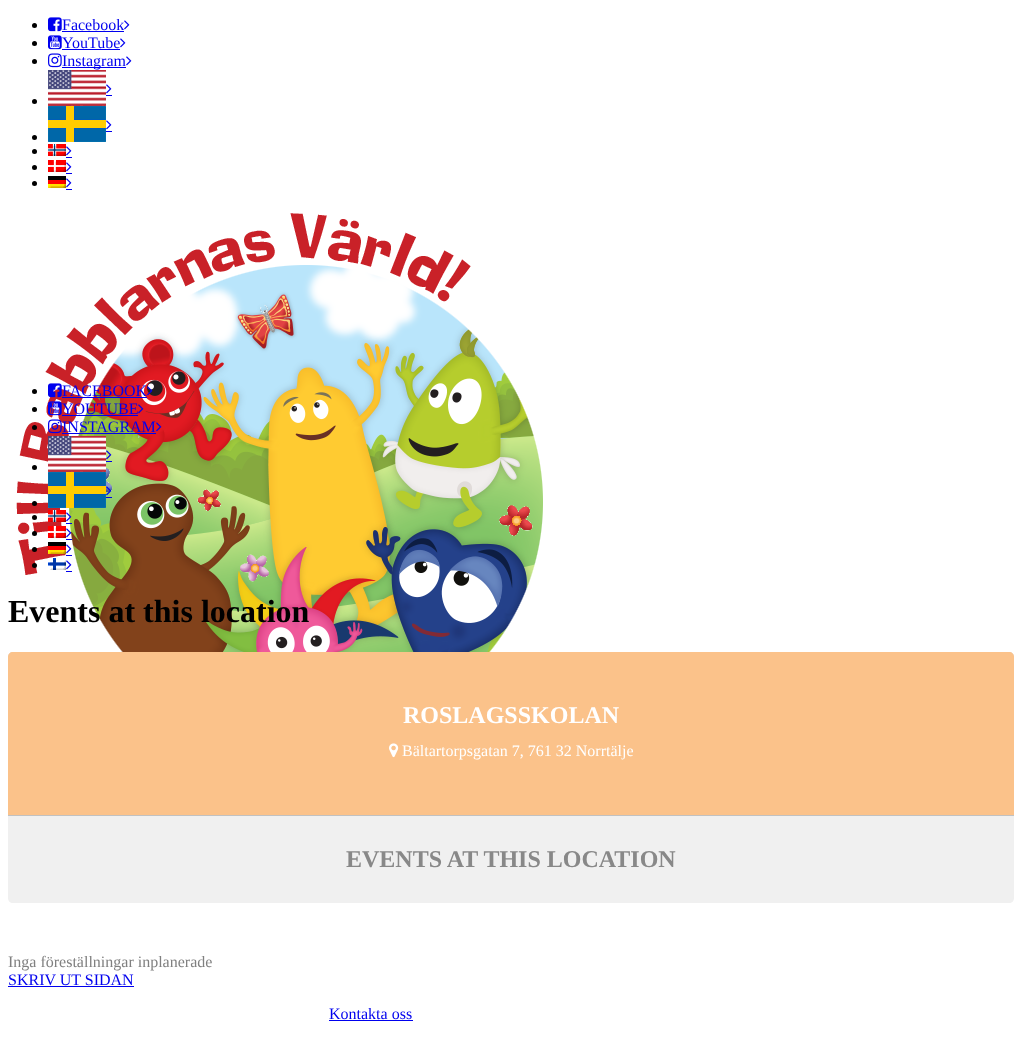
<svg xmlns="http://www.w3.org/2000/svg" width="1022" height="1053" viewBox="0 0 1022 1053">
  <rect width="100%" height="100%" fill="rgb(255,255,255)"/>
  <circle cx="34.5" cy="25.5" r="2.5" fill="rgb(0,0,0)"/>
  <image x="48" y="17" width="14" height="15" href="pic1.png"/>
  <text x="62" y="30" font-family="Liberation Serif" font-size="16" fill="rgb(0,0,238)">Facebook</text>
  <rect x="62" y="31" width="62" height="1" fill="rgb(0,0,238)"/>
  <image x="124" y="20" width="6" height="10" href="pic2.png"/>
  <circle cx="34.5" cy="43.5" r="2.5" fill="rgb(0,0,0)"/>
  <image x="48" y="35" width="14" height="15" href="pic3.png"/>
  <text x="62" y="48" font-family="Liberation Serif" font-size="16" fill="rgb(0,0,238)">YouTube</text>
  <rect x="62" y="49" width="58" height="1" fill="rgb(0,0,238)"/>
  <image x="120" y="38" width="6" height="10" href="pic2.png"/>
  <circle cx="34.5" cy="61.5" r="2.5" fill="rgb(0,0,0)"/>
  <image x="48" y="53" width="14" height="15" href="pic4.png"/>
  <rect x="62" y="67" width="64" height="1" fill="rgb(0,0,238)"/>
  <text x="62" y="66" font-family="Liberation Serif" font-size="16" fill="rgb(0,0,238)">Instagram</text>
  <image x="126" y="56" width="6" height="10" href="pic2.png"/>
  <circle cx="34.5" cy="101.5" r="2.5" fill="rgb(0,0,0)"/>
  <image x="48" y="70" width="58" height="36" href="pic5.png"/>
  <image x="106" y="84" width="6" height="10" href="pic2.png"/>
  <rect x="106" y="95" width="6" height="1" fill="rgb(0,0,238)"/>
  <circle cx="34.5" cy="137.5" r="2.5" fill="rgb(0,0,0)"/>
  <image x="48" y="106" width="58" height="36" href="pic6.png"/>
  <image x="106" y="120" width="6" height="10" href="pic2.png"/>
  <rect x="106" y="131" width="6" height="1" fill="rgb(0,0,238)"/>
  <circle cx="34.5" cy="151.5" r="2.5" fill="rgb(0,0,0)"/>
  <image x="48" y="144" width="18" height="12" href="pic7.png"/>
  <image x="66" y="146" width="6" height="10" href="pic2.png"/>
  <rect x="66" y="157" width="6" height="1" fill="rgb(0,0,238)"/>
  <circle cx="34.5" cy="167.5" r="2.5" fill="rgb(0,0,0)"/>
  <image x="48" y="160" width="18" height="12" href="pic8.png"/>
  <image x="66" y="162" width="6" height="10" href="pic2.png"/>
  <rect x="66" y="173" width="6" height="1" fill="rgb(0,0,238)"/>
  <circle cx="34.5" cy="183.5" r="2.5" fill="rgb(0,0,0)"/>
  <image x="48" y="176" width="18" height="12" href="pic9.png"/>
  <image x="66" y="178" width="6" height="10" href="pic2.png"/>
  <rect x="66" y="189" width="6" height="1" fill="rgb(0,0,238)"/>
  <image x="16" y="213" width="527" height="439" href="pic10.png"/>
  <circle cx="34.5" cy="391.5" r="2.5" fill="rgb(0,0,0)"/>
  <image x="48" y="383" width="14" height="15" href="pic11.png"/>
  <text x="62" y="396" font-family="Liberation Serif" font-size="16" fill="rgb(0,0,238)">FACEBOOK</text>
  <rect x="62" y="397" width="85" height="1" fill="rgb(0,0,238)"/>
  <image x="147" y="386" width="6" height="10" href="pic12.png"/>
  <circle cx="34.5" cy="409.5" r="2.5" fill="rgb(0,0,0)"/>
  <image x="48" y="401" width="14" height="15" href="pic13.png"/>
  <text x="62" y="414" font-family="Liberation Serif" font-size="16" fill="rgb(0,0,238)">YOUTUBE</text>
  <rect x="62" y="415" width="76" height="1" fill="rgb(0,0,238)"/>
  <image x="138" y="404" width="6" height="10" href="pic14.png"/>
  <circle cx="34.5" cy="427.5" r="2.5" fill="rgb(0,0,0)"/>
  <image x="48" y="419" width="14" height="15" href="pic15.png"/>
  <text x="62" y="432" font-family="Liberation Serif" font-size="16" fill="rgb(0,0,238)">INSTAGRAM</text>
  <rect x="62" y="433" width="94" height="1" fill="rgb(0,0,238)"/>
  <image x="156" y="422" width="6" height="10" href="pic16.png"/>
  <circle cx="34.5" cy="467.5" r="2.5" fill="rgb(0,0,0)"/>
  <image x="48" y="436" width="58" height="36" href="pic5.png"/>
  <image x="106" y="450" width="6" height="10" href="pic17.png"/>
  <rect x="106" y="461" width="6" height="1" fill="rgb(0,0,238)"/>
  <circle cx="34.5" cy="503.5" r="2.5" fill="rgb(0,0,0)"/>
  <image x="48" y="472" width="58" height="36" href="pic6.png"/>
  <image x="106" y="486" width="6" height="10" href="pic18.png"/>
  <rect x="106" y="497" width="6" height="1" fill="rgb(0,0,238)"/>
  <circle cx="34.5" cy="517.5" r="2.5" fill="rgb(0,0,0)"/>
  <image x="48" y="510" width="18" height="12" href="pic7.png"/>
  <image x="66" y="512" width="6" height="10" href="pic19.png"/>
  <rect x="66" y="523" width="6" height="1" fill="rgb(0,0,238)"/>
  <circle cx="34.5" cy="533.5" r="2.5" fill="rgb(0,0,0)"/>
  <image x="48" y="526" width="18" height="12" href="pic8.png"/>
  <image x="66" y="528" width="6" height="10" href="pic20.png"/>
  <rect x="66" y="539" width="6" height="1" fill="rgb(0,0,238)"/>
  <circle cx="34.5" cy="549.5" r="2.5" fill="rgb(0,0,0)"/>
  <image x="48" y="542" width="18" height="12" href="pic9.png"/>
  <image x="66" y="544" width="6" height="10" href="pic2.png"/>
  <rect x="66" y="555" width="6" height="1" fill="rgb(0,0,238)"/>
  <circle cx="34.5" cy="565.5" r="2.5" fill="rgb(0,0,0)"/>
  <image x="48" y="558" width="18" height="12" href="pic21.png"/>
  <image x="66" y="560" width="6" height="10" href="pic2.png"/>
  <rect x="66" y="571" width="6" height="1" fill="rgb(0,0,238)"/>
  <text x="8" y="622" font-family="Liberation Serif" font-size="32" font-weight="bold" fill="rgb(0,0,0)">Events at this location</text>
  <path d="M13 652H1009C1012 652 1014 654 1014 657V815H8V657C8 654 10 652 13 652Z" fill="rgb(220,220,220)"/>
  <path d="M13 652H1009C1012 652 1014 654 1014 657V815H8V657C8 654 10 652 13 652Z" fill="rgba(255,191,128,0.89)"/>
  <text x="403" y="723" font-family="Liberation Serif" font-size="24" font-weight="bold" fill="rgb(255,255,255)">ROSLAGSSKOLAN</text>
  <image x="389" y="743" width="10" height="15" href="pic22.png"/>
  <text x="402" y="756" font-family="Liberation Serif" font-size="16" fill="rgb(255,255,255)">Bältartorpsgatan 7, 761 32 Norrtälje</text>
  <path d="M8 815H1014V898C1014 901 1012 903 1009 903H13C10 903 8 901 8 898Z" fill="rgb(240,240,240)"/>
  <rect x="8" y="815" width="1006" height="1" fill="rgb(193,193,193)"/>
  <text x="346" y="867" font-family="Liberation Serif" font-size="24" font-weight="bold" fill="rgb(136,136,136)">EVENTS AT THIS LOCATION</text>
  <text x="8" y="967" font-family="Liberation Serif" font-size="16" fill="rgb(128,128,128)">Inga föreställningar inplanerade</text>
  <text x="8" y="985" font-family="Liberation Serif" font-size="16" fill="rgb(0,0,238)">SKRIV UT SIDAN</text>
  <rect x="8" y="986" width="126" height="1" fill="rgb(0,0,238)"/>
  <text x="329" y="1019" font-family="Liberation Serif" font-size="16" fill="rgb(0,0,238)">Kontakta oss</text>
  <rect x="329" y="1020" width="84" height="1" fill="rgb(0,0,238)"/>
</svg>
